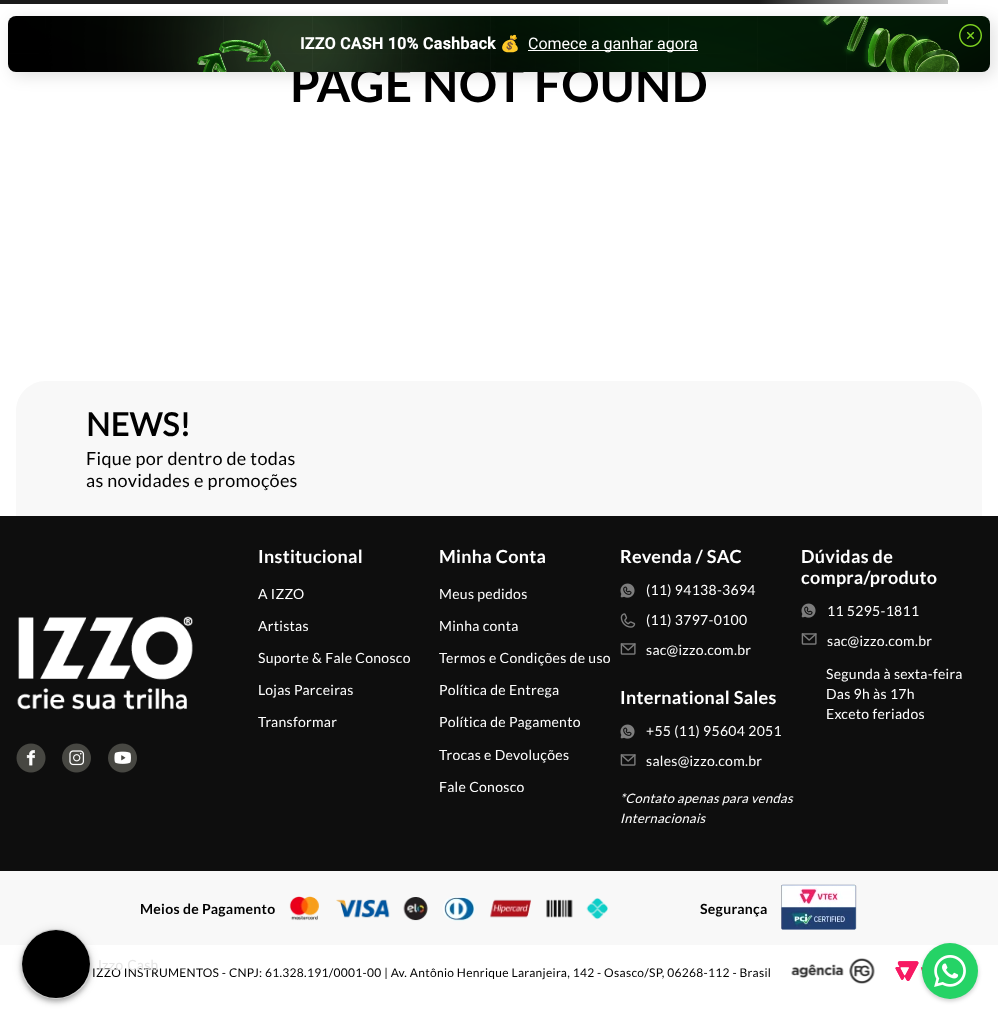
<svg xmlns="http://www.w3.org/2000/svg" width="998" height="1019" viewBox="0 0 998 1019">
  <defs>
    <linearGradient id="g1" gradientUnits="userSpaceOnUse" x1="0" y1="2" x2="948" y2="2"><stop offset="0.8" stop-color="rgb(26,26,26)"/><stop offset="0.9" stop-color="rgb(128,128,128)"/><stop offset="1" stop-color="rgb(204,204,204)"/></linearGradient>
  </defs>
  <rect width="100%" height="100%" fill="rgb(255,255,255)"/>
  <rect x="12" y="20" width="982" height="56" rx="8" fill="rgba(0,0,0,0.12)" filter="blur(8px)"/>
  <text x="290" y="102" font-family="Lato" font-size="48" font-weight="bold" letter-spacing="0.3" fill="rgb(0,0,0)">PAGE NOT FOUND</text>
  <image x="8" y="16" width="982" height="56" href="pic1.png"/>
  <text x="300" y="49" font-family="Roboto" font-size="16" font-weight="bold" letter-spacing="0.3" fill="rgb(255,255,255)">IZZO CASH 10% Cashback</text>
  <text x="500" y="49" font-family="Noto Color Emoji" font-size="16" font-weight="bold" letter-spacing="0.3" fill="rgb(255,255,255)">💰</text>
  <rect x="528" y="50" width="170" height="1" fill="rgb(255,255,255)"/>
  <text x="528" y="49" font-family="Roboto" font-size="16" fill="rgb(255,255,255)">Comece a ganhar agora</text>
  <image x="959" y="24" width="23" height="23" href="pic2.png"/>
  <rect x="0" y="0" width="948" height="4" fill="url(#g1)"/>
  <path d="M46 381H952C968.5 381 982 394.5 982 411V516H16V411C16 394.5 29.5 381 46 381Z" fill="rgb(248,248,248)"/>
  <text x="86" y="436" font-family="'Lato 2'" font-size="32" font-weight="bold" letter-spacing="0.3" fill="rgb(0,0,0)">NEWS!</text>
  <g font-family="Lato" font-size="18" letter-spacing="0.3" fill="rgb(0,0,0)">
    <text>
      <tspan x="86" y="465">Fique por dentro de todas</tspan>
      <tspan x="86" y="487">as novidades e promoções</tspan>
    </text>
  </g>
  <rect x="0" y="516" width="998" height="355" fill="rgb(14,14,14)"/>
  <image x="17" y="616" width="176" height="94" href="pic3.png"/>
  <image x="16" y="743" width="30" height="30" href="pic4.png"/>
  <image x="62" y="743" width="29" height="30" href="pic5.png"/>
  <image x="108" y="743" width="29" height="30" href="pic6.png"/>
  <text x="258" y="563" font-family="Lato" font-size="18" font-weight="bold" letter-spacing="0.3" fill="rgb(255,255,255)">Institucional</text>
  <g font-family="Lato" font-size="14" letter-spacing="0.3" fill="rgb(255,255,255)">
    <text x="258" y="599">A IZZO</text>
    <text x="258" y="631">Artistas</text>
    <text x="258" y="663">Suporte &amp; Fale Conosco</text>
    <text x="258" y="695">Lojas Parceiras</text>
    <text x="258" y="727">Transformar</text>
  </g>
  <text x="439" y="563" font-family="Lato" font-size="18" font-weight="bold" letter-spacing="0.3" fill="rgb(255,255,255)">Minha Conta</text>
  <g font-family="Lato" font-size="14" letter-spacing="0.3" fill="rgb(255,255,255)">
    <text x="439" y="599">Meus pedidos</text>
    <text x="439" y="631">Minha conta</text>
    <text x="439" y="663">Termos e Condições de uso</text>
    <text x="439" y="695">Política de Entrega</text>
    <text x="439" y="727">Política de Pagamento</text>
    <text x="439" y="760">Trocas e Devoluções</text>
    <text x="439" y="792">Fale Conosco</text>
  </g>
  <text x="620" y="563" font-family="Lato" font-size="18" font-weight="bold" letter-spacing="0.3" fill="rgb(255,255,255)">Revenda / SAC</text>
  <image x="620" y="583" width="15" height="15" href="pic7.png"/>
  <text x="646" y="595" font-family="Lato" font-size="14" letter-spacing="0.3" fill="rgb(255,255,255)">(11) 94138-3694</text>
  <image x="620" y="613" width="16" height="15" href="pic8.png"/>
  <text x="646" y="625" font-family="Lato" font-size="14" letter-spacing="0.3" fill="rgb(255,255,255)">(11) 3797-0100</text>
  <image x="620" y="643" width="16" height="12" href="pic9.png"/>
  <text x="646" y="655" font-family="Lato" font-size="14" letter-spacing="0.3" fill="rgb(255,255,255)">sac@izzo.com.br</text>
  <text x="620" y="704" font-family="Lato" font-size="18" font-weight="bold" letter-spacing="0.3" fill="rgb(255,255,255)">International Sales</text>
  <image x="620" y="724" width="15" height="15" href="pic7.png"/>
  <text x="646" y="736" font-family="Lato" font-size="14" letter-spacing="0.3" fill="rgb(255,255,255)">+55 (11) 95604 2051</text>
  <image x="620" y="754" width="16" height="12" href="pic9.png"/>
  <text x="646" y="766" font-family="Lato" font-size="14" letter-spacing="0.3" fill="rgb(255,255,255)">sales@izzo.com.br</text>
  <g font-family="Lato" font-size="13" font-style="italic" letter-spacing="0.3" fill="rgb(255,255,255)">
    <text>
      <tspan x="620" y="803">*Contato apenas para vendas</tspan>
      <tspan x="620" y="823">Internacionais</tspan>
    </text>
  </g>
  <g font-family="Lato" font-size="18" font-weight="bold" letter-spacing="0.3" fill="rgb(255,255,255)">
    <text>
      <tspan x="801" y="563">Dúvidas de</tspan>
      <tspan x="801" y="584">compra/produto</tspan>
    </text>
  </g>
  <image x="801" y="603" width="15" height="15" href="pic7.png"/>
  <text x="827" y="616" font-family="Lato" font-size="14" letter-spacing="0.3" fill="rgb(255,255,255)">11 5295-1811</text>
  <image x="801" y="633" width="16" height="12" href="pic9.png"/>
  <g font-family="Lato" font-size="14" letter-spacing="0.3" fill="rgb(255,255,255)">
    <text x="827" y="646">sac@izzo.com.br</text>
    <text>
      <tspan x="826" y="679">Segunda à sexta-feira</tspan>
      <tspan x="826" y="699">Das 9h às 17h</tspan>
      <tspan x="826" y="719">Exceto feriados</tspan>
    </text>
  </g>
  <rect x="0" y="871" width="998" height="74" fill="rgb(248,248,248)"/>
  <text x="140" y="914" font-family="Lato" font-size="14" font-weight="bold" letter-spacing="0.3" fill="rgb(0,0,0)">Meios de Pagamento</text>
  <image x="289" y="896" width="319" height="25" href="pic10.png"/>
  <text x="700" y="914" font-family="Lato" font-size="14" font-weight="bold" letter-spacing="0.3" fill="rgb(0,0,0)">Segurança</text>
  <image x="781" y="884" width="76" height="46" href="pic11.png"/>
  <text x="92" y="977" font-family="Lato" font-size="12" letter-spacing="0.3" fill="rgb(0,0,0)">IZZO INSTRUMENTOS - CNPJ: 61.328.191/0001-00 | Av. Antônio Henrique Laranjeira, 142 - Osasco/SP, 06268-112 - Brasil</text>
  <image x="791" y="958" width="84" height="26" href="pic12.png"/>
  <image x="895" y="961" width="28" height="20" href="pic13.png"/>
  <rect x="21" y="930" width="70" height="70" rx="35" fill="rgba(0,0,0,0.12)" filter="blur(5px)"/>
  <rect x="21" y="933" width="70" height="70" rx="35" fill="rgba(0,0,0,0.14)" filter="blur(2.5px)"/>
  <rect x="22" y="932" width="68" height="68" rx="34" fill="rgba(0,0,0,0.2)" filter="blur(2px)"/>
  <circle cx="56" cy="964" r="35" fill="rgb(255,255,255)"/>
  <circle cx="56" cy="964" r="34.5" fill="none" stroke="rgba(0,0,0,0.2)"/>
  <circle cx="56" cy="964" r="34" fill="rgb(0,0,0)"/>
  <text x="98" y="970" font-family="'Lato 2'" font-size="14" letter-spacing="0.3" fill="rgb(230,230,230)">Izzo Cash</text>
  <rect x="922" y="945" width="56" height="56" rx="28" fill="rgba(0,0,0,0.2)" filter="blur(2px)"/>
  <circle cx="950" cy="971" r="28" fill="rgb(37,211,102)"/>
  <image x="934" y="955" width="32" height="32" href="pic14.png"/>
</svg>
